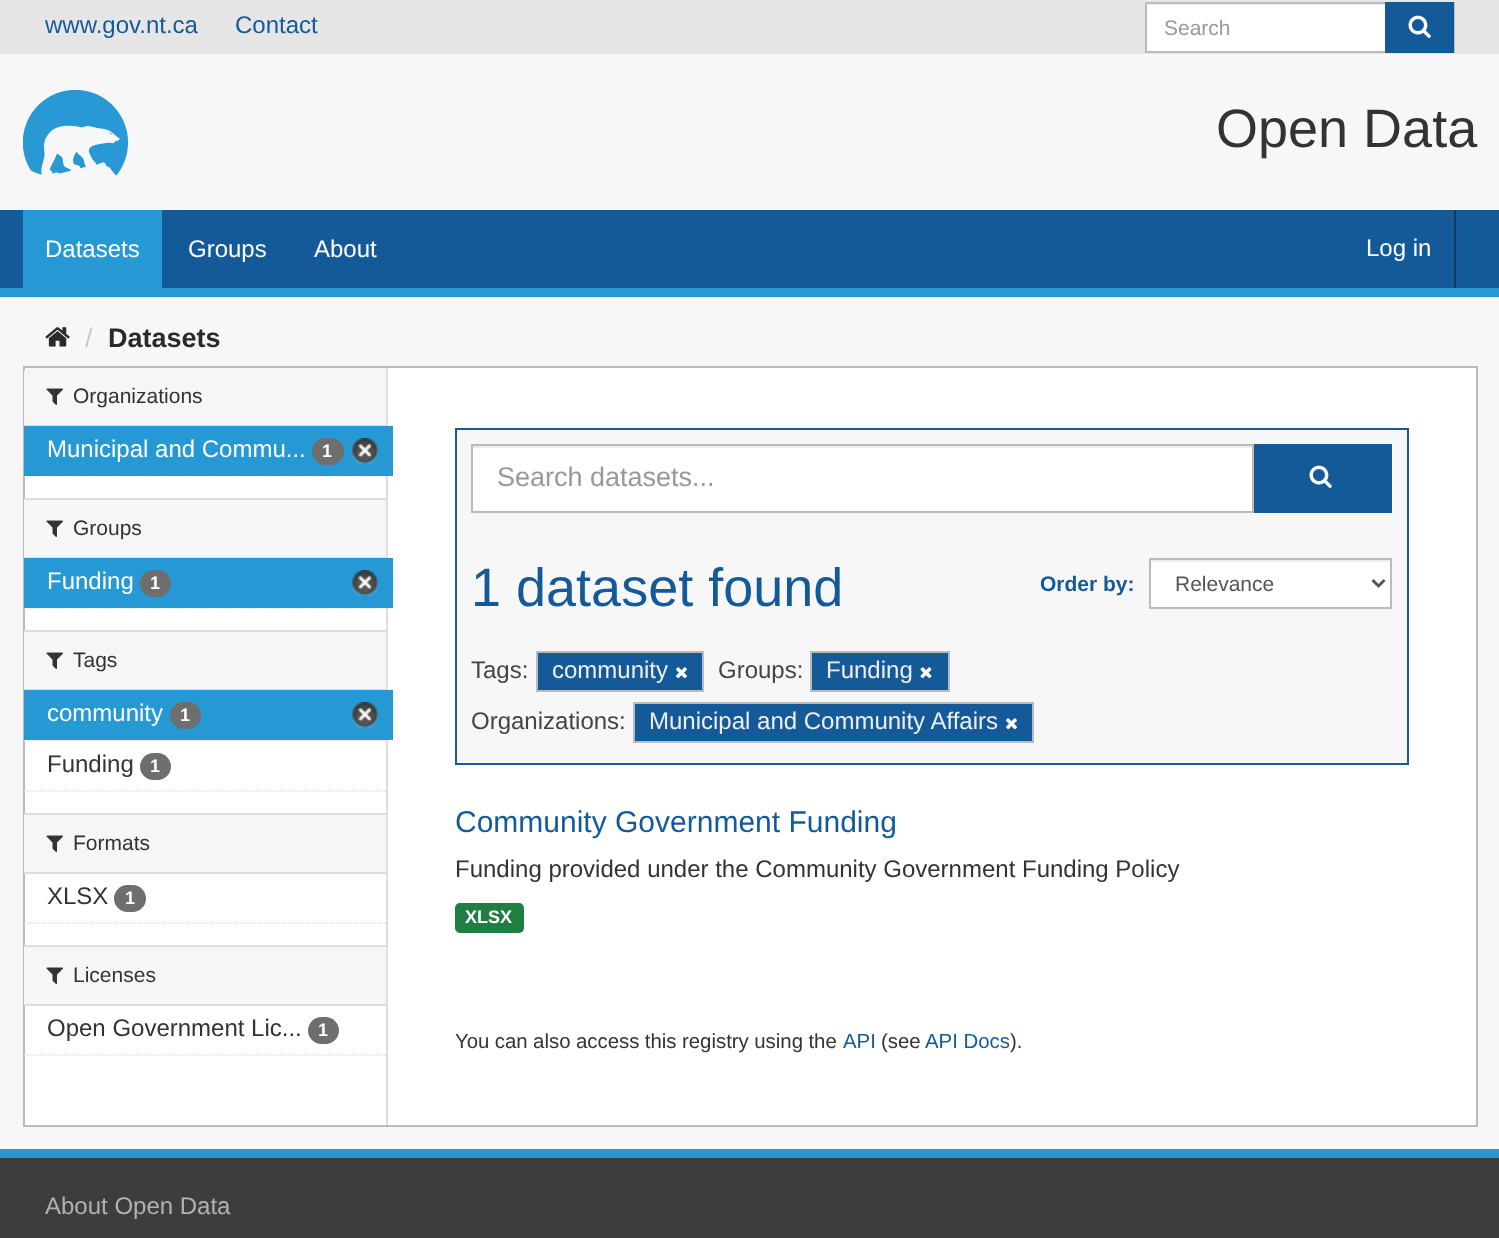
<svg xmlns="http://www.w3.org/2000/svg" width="1499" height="1238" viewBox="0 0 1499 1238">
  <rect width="100%" height="100%" fill="rgb(247,247,247)"/>
  <rect x="0" y="0" width="1499" height="54" fill="rgb(230,230,230)"/>
  <g font-family="Liberation Sans" font-size="24" fill="rgb(21,90,152)">
    <text x="45" y="33">www.gov.nt.ca</text>
    <text x="235" y="33">Contact</text>
  </g>
  <rect x="1147" y="5" width="238" height="46" fill="rgb(255,255,255)"/>
  <rect x="1146" y="4" width="239" height="1" fill="rgb(236,236,236)"/>
  <rect x="1146" y="3" width="308" height="49" fill="none" stroke="rgb(187,187,187)" stroke-width="2"/>
  <text x="1164" y="35" font-family="Liberation Sans" font-size="21" fill="rgb(153,153,153)">Search</text>
  <rect x="1385" y="2" width="69" height="51" fill="rgb(21,90,152)"/>
  <image x="1408" y="15" width="23" height="23" href="pic1.png"/>
  <image x="23" y="90" width="105" height="86" href="pic2.png"/>
  <text x="1216" y="147" font-family="Liberation Sans" font-size="54" fill="rgb(51,51,51)">Open Data</text>
  <rect x="0" y="210" width="1499" height="78" fill="rgb(21,90,152)"/>
  <rect x="0" y="288" width="1499" height="9" fill="rgb(38,153,213)"/>
  <rect x="23" y="210" width="139" height="78" fill="rgb(38,153,213)"/>
  <g font-family="Liberation Sans" font-size="24" fill="rgb(255,255,255)">
    <text x="45" y="257">Datasets</text>
    <text x="188" y="257">Groups</text>
    <text x="314" y="257">About</text>
  </g>
  <rect x="1454" y="210" width="2" height="78" fill="rgb(13,59,101)"/>
  <text x="1366" y="256" font-family="Liberation Sans" font-size="24" fill="rgb(255,255,255)">Log in</text>
  <image x="45" y="327" width="25" height="20" href="pic3.png"/>
  <text x="85" y="347" font-family="Liberation Sans" font-size="27" fill="rgb(204,204,204)">/</text>
  <text x="108" y="347" font-family="Liberation Sans" font-size="27" font-weight="bold" fill="rgb(42,42,42)">Datasets</text>
  <rect x="24" y="367" width="1453" height="759" fill="rgb(255,255,255)" stroke="rgb(187,187,187)" stroke-width="2"/>
  <path d="M29 368H386V426H24V373C24 370 26 368 29 368Z" fill="rgb(246,246,246)"/>
  <rect x="24" y="425" width="362" height="1" fill="rgb(221,221,221)"/>
  <image x="46" y="388" width="17" height="17" href="pic4.png"/>
  <text x="73" y="403" font-family="Liberation Sans" font-size="21" fill="rgb(51,51,51)">Organizations</text>
  <path d="M24 476H385.5" fill="none" stroke="rgb(221,221,221)" stroke-width="1.5" stroke-dasharray="1.5 1.5"/>
  <rect x="386" y="368" width="2" height="757" fill="rgb(221,221,221)"/>
  <rect x="24" y="426" width="369" height="50" fill="rgb(38,153,213)"/>
  <text x="47" y="457" font-family="Liberation Sans" font-size="24" fill="rgb(255,255,255)">Municipal and Commu...</text>
  <rect x="312" y="438" width="32" height="27" rx="13.5" fill="rgb(110,110,110)"/>
  <text x="322" y="457" font-family="Liberation Sans" font-size="18" font-weight="bold" fill="rgb(255,255,255)">1</text>
  <image x="352" y="438" width="26" height="26" href="pic5.png"/>
  <rect x="24" y="500" width="362" height="57" fill="rgb(246,246,246)"/>
  <rect x="24" y="498" width="362" height="2" fill="rgb(221,221,221)"/>
  <rect x="24" y="557" width="362" height="1" fill="rgb(221,221,221)"/>
  <image x="46" y="520" width="17" height="17" href="pic4.png"/>
  <text x="73" y="535" font-family="Liberation Sans" font-size="21" fill="rgb(51,51,51)">Groups</text>
  <path d="M24 608H385.5" fill="none" stroke="rgb(221,221,221)" stroke-width="1.5" stroke-dasharray="1.5 1.5"/>
  <rect x="24" y="558" width="369" height="50" fill="rgb(38,153,213)"/>
  <text x="47" y="589" font-family="Liberation Sans" font-size="24" fill="rgb(255,255,255)">Funding</text>
  <rect x="140" y="570" width="31" height="27" rx="13.5" fill="rgb(110,110,110)"/>
  <text x="150" y="589" font-family="Liberation Sans" font-size="18" font-weight="bold" fill="rgb(255,255,255)">1</text>
  <image x="352" y="570" width="26" height="26" href="pic5.png"/>
  <rect x="24" y="632" width="362" height="57" fill="rgb(246,246,246)"/>
  <rect x="24" y="630" width="362" height="2" fill="rgb(221,221,221)"/>
  <rect x="24" y="689" width="362" height="1" fill="rgb(221,221,221)"/>
  <image x="46" y="652" width="17" height="17" href="pic4.png"/>
  <text x="73" y="667" font-family="Liberation Sans" font-size="21" fill="rgb(51,51,51)">Tags</text>
  <rect x="24" y="740" width="362" height="1" fill="rgb(246,246,246)"/>
  <path d="M24 740H385.5" fill="none" stroke="rgb(221,221,221)" stroke-width="1.5" stroke-dasharray="1.5 1.5"/>
  <rect x="24" y="690" width="369" height="50" fill="rgb(38,153,213)"/>
  <text x="47" y="721" font-family="Liberation Sans" font-size="24" fill="rgb(255,255,255)">community</text>
  <rect x="170" y="702" width="31" height="27" rx="13.5" fill="rgb(110,110,110)"/>
  <text x="180" y="721" font-family="Liberation Sans" font-size="18" font-weight="bold" fill="rgb(255,255,255)">1</text>
  <image x="352" y="702" width="26" height="26" href="pic5.png"/>
  <text x="47" y="772" font-family="Liberation Sans" font-size="24" fill="rgb(51,51,51)">Funding</text>
  <rect x="140" y="753" width="31" height="27" rx="13.5" fill="rgb(110,110,110)"/>
  <text x="150" y="772" font-family="Liberation Sans" font-size="18" font-weight="bold" fill="rgb(255,255,255)">1</text>
  <path d="M24 791H385.5" fill="none" stroke="rgb(221,221,221)" stroke-width="1.5" stroke-dasharray="1.5 1.5"/>
  <rect x="24" y="815" width="362" height="57" fill="rgb(246,246,246)"/>
  <rect x="24" y="813" width="362" height="2" fill="rgb(221,221,221)"/>
  <rect x="24" y="872" width="362" height="2" fill="rgb(221,221,221)"/>
  <image x="46" y="835" width="17" height="17" href="pic4.png"/>
  <text x="73" y="850" font-family="Liberation Sans" font-size="21" fill="rgb(51,51,51)">Formats</text>
  <text x="47" y="904" font-family="Liberation Sans" font-size="24" fill="rgb(51,51,51)">XLSX</text>
  <rect x="114" y="885" width="32" height="27" rx="13.5" fill="rgb(110,110,110)"/>
  <text x="125" y="904" font-family="Liberation Sans" font-size="18" font-weight="bold" fill="rgb(255,255,255)">1</text>
  <path d="M24 923H385.5" fill="none" stroke="rgb(221,221,221)" stroke-width="1.5" stroke-dasharray="1.5 1.5"/>
  <rect x="24" y="947" width="362" height="57" fill="rgb(246,246,246)"/>
  <rect x="24" y="945" width="362" height="2" fill="rgb(221,221,221)"/>
  <rect x="24" y="1004" width="362" height="2" fill="rgb(221,221,221)"/>
  <image x="46" y="967" width="17" height="17" href="pic4.png"/>
  <text x="73" y="982" font-family="Liberation Sans" font-size="21" fill="rgb(51,51,51)">Licenses</text>
  <text x="47" y="1036" font-family="Liberation Sans" font-size="24" fill="rgb(51,51,51)">Open Government Lic...</text>
  <rect x="308" y="1017" width="31" height="27" rx="13.5" fill="rgb(110,110,110)"/>
  <text x="318" y="1036" font-family="Liberation Sans" font-size="18" font-weight="bold" fill="rgb(255,255,255)">1</text>
  <path d="M24 1055H385.5" fill="none" stroke="rgb(221,221,221)" stroke-width="1.5" stroke-dasharray="1.5 1.5"/>
  <rect x="456" y="429" width="952" height="335" fill="rgb(247,247,247)" stroke="rgb(26,91,150)" stroke-width="2"/>
  <rect x="473" y="448" width="779" height="63" fill="rgb(255,255,255)"/>
  <rect x="473" y="446" width="780" height="2" fill="rgb(236,236,236)"/>
  <rect x="472" y="445" width="781" height="67" fill="none" stroke="rgb(187,187,187)" stroke-width="2"/>
  <text x="497" y="486" font-family="Liberation Sans" font-size="27" fill="rgb(153,153,153)">Search datasets...</text>
  <rect x="1254" y="444" width="138" height="69" fill="rgb(21,90,152)"/>
  <image x="1309" y="465" width="23" height="23" href="pic1.png"/>
  <text x="471" y="606" font-family="Liberation Sans" font-size="54" fill="rgb(21,90,152)">1 dataset found</text>
  <text x="1040" y="591" font-family="Liberation Sans" font-size="21" font-weight="bold" fill="rgb(21,90,152)">Order by:</text>
  <rect x="1151" y="562" width="239" height="45" fill="rgb(255,255,255)"/>
  <rect x="1151" y="560" width="240" height="2" fill="rgb(236,236,236)"/>
  <rect x="1150" y="559" width="241" height="49" fill="none" stroke="rgb(187,187,187)" stroke-width="2"/>
  <path d="M1372.5 580L1378.5 586L1384.5 580" fill="none" stroke="rgb(85,85,85)" stroke-width="3"/>
  <text x="1175" y="591" font-family="Liberation Sans" font-size="21" fill="rgb(85,85,85)">Relevance</text>
  <text x="471" y="678" font-family="Liberation Sans" font-size="24" fill="rgb(68,68,68)">Tags:</text>
  <rect x="537" y="652" width="166" height="39" fill="rgb(21,90,152)" stroke="rgb(187,187,187)" stroke-width="2"/>
  <text x="552" y="678" font-family="Liberation Sans" font-size="24" fill="rgb(238,238,238)">community</text>
  <image x="676" y="667" width="11" height="12" href="pic6.png"/>
  <text x="718" y="678" font-family="Liberation Sans" font-size="24" fill="rgb(68,68,68)">Groups:</text>
  <rect x="811" y="652" width="138" height="39" fill="rgb(21,90,152)" stroke="rgb(187,187,187)" stroke-width="2"/>
  <text x="826" y="678" font-family="Liberation Sans" font-size="24" fill="rgb(238,238,238)">Funding</text>
  <image x="920" y="667" width="12" height="12" href="pic7.png"/>
  <text x="471" y="729" font-family="Liberation Sans" font-size="24" fill="rgb(68,68,68)">Organizations:</text>
  <rect x="634" y="703" width="399" height="39" fill="rgb(21,90,152)" stroke="rgb(187,187,187)" stroke-width="2"/>
  <text x="649" y="729" font-family="Liberation Sans" font-size="24" fill="rgb(238,238,238)">Municipal and Community Affairs</text>
  <image x="1006" y="718" width="11" height="12" href="pic6.png"/>
  <text x="455" y="832" font-family="Liberation Sans" font-size="30" fill="rgb(21,90,152)">Community Government Funding</text>
  <text x="455" y="877" font-family="Liberation Sans" font-size="24" fill="rgb(51,51,51)">Funding provided under the Community Government Funding Policy</text>
  <rect x="455" y="903" width="69" height="30" rx="5" fill="rgb(32,126,66)"/>
  <text x="465" y="923" font-family="Liberation Sans" font-size="18" font-weight="bold" fill="rgb(255,255,255)">XLSX</text>
  <text x="455" y="1048" word-spacing="-0.25" font-family="Liberation Sans" font-size="20.4" fill="rgb(51,51,51)">You can also access this registry using the</text>
  <text x="843" y="1048" font-family="Liberation Sans" font-size="20.4" fill="rgb(21,90,152)">API</text>
  <text x="881" y="1048" font-family="Liberation Sans" font-size="20.4" fill="rgb(51,51,51)">(see</text>
  <text x="925" y="1048" font-family="Liberation Sans" font-size="20.4" fill="rgb(21,90,152)">API Docs</text>
  <text x="1010" y="1048" font-family="Liberation Sans" font-size="20.4" fill="rgb(51,51,51)">).</text>
  <rect x="0" y="1158" width="1499" height="80" fill="rgb(61,61,61)"/>
  <rect x="0" y="1149" width="1499" height="9" fill="rgb(38,153,213)"/>
  <text x="45" y="1214" font-family="Liberation Sans" font-size="24" fill="rgb(177,177,177)">About Open Data</text>
</svg>
